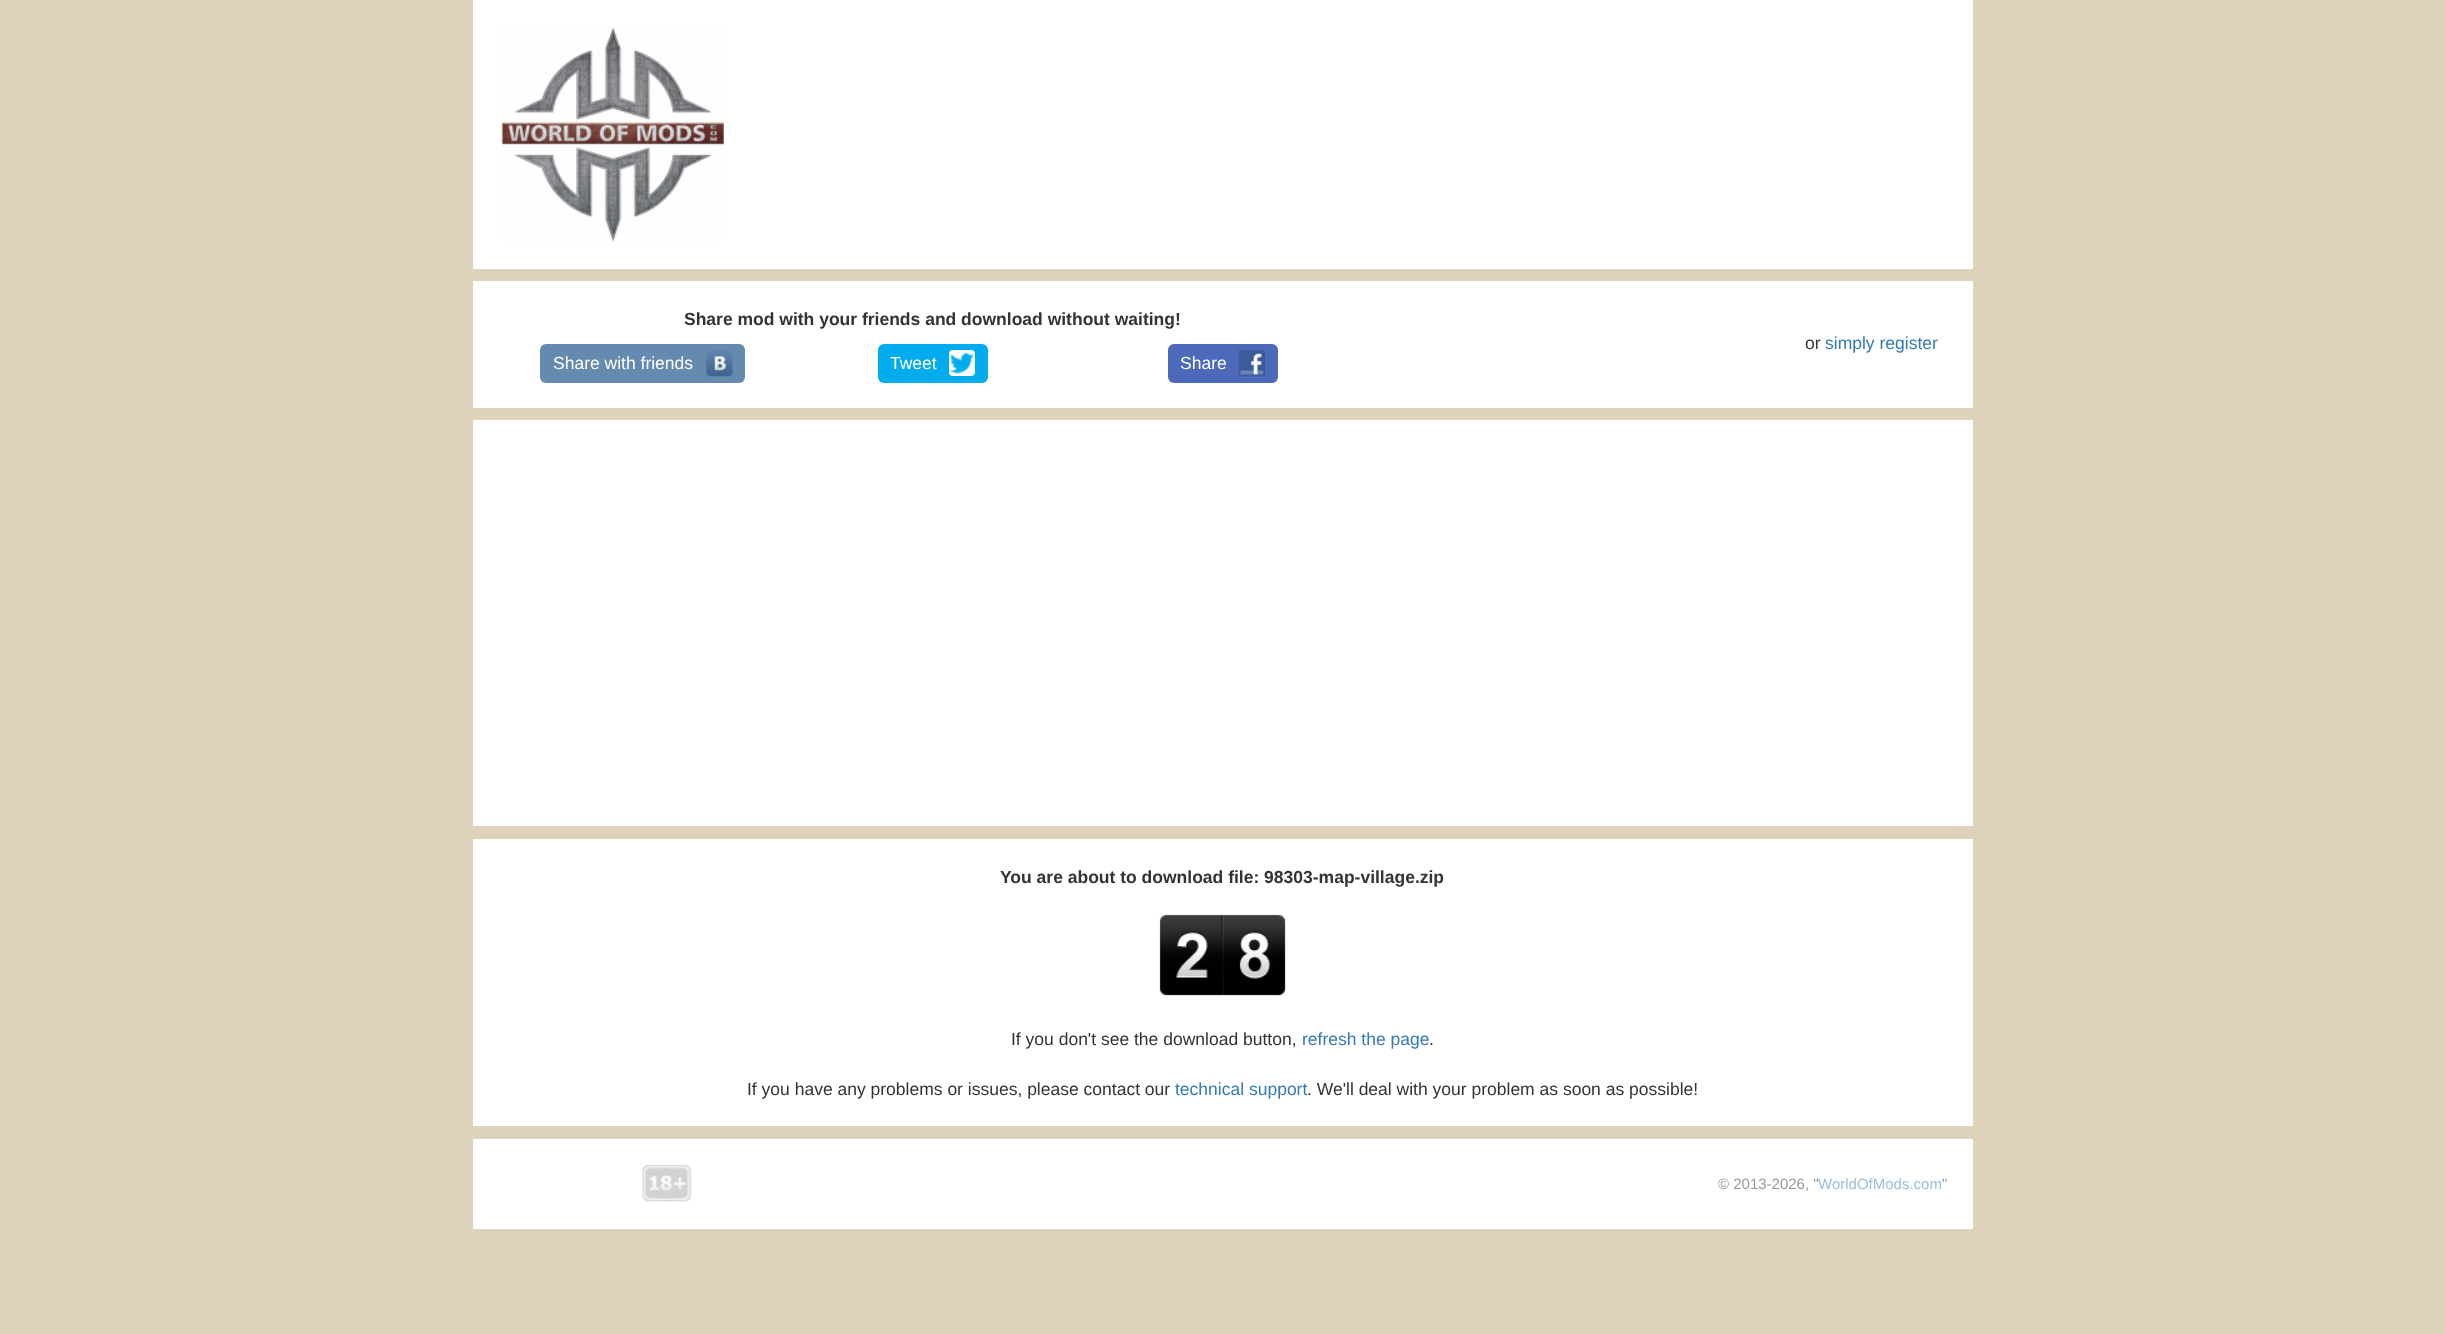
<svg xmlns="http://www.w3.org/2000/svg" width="2445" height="1334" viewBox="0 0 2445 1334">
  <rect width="100%" height="100%" fill="rgb(222,211,186)"/>
  <rect x="473" y="0" width="1500" height="269" fill="rgb(255,255,255)"/>
  <image x="501" y="27" width="223" height="215" href="pic1.png"/>
  <rect x="473" y="281" width="1500" height="127" fill="rgb(255,255,255)"/>
  <text x="684" y="325" font-family="Liberation Sans" font-size="17.5" font-weight="bold" fill="rgb(51,51,51)">Share mod with your friends and download without waiting!</text>
  <rect x="540" y="344" width="205" height="39" rx="6" fill="rgb(101,138,176)"/>
  <text x="553" y="369" font-family="Liberation Sans" font-size="17.5" fill="rgb(255,255,255)">Share with friends</text>
  <image x="706" y="350" width="27" height="27" href="pic2.png"/>
  <rect x="878" y="344" width="110" height="39" rx="6" fill="rgb(0,172,238)"/>
  <text x="890" y="369" font-family="Liberation Sans" font-size="17.5" fill="rgb(255,255,255)">Tweet</text>
  <rect x="949" y="350" width="26" height="26" rx="4" fill="rgb(255,255,255)"/>
  <image x="950" y="352" width="24" height="22" href="pic3.png"/>
  <rect x="1168" y="344" width="110" height="39" rx="6" fill="rgb(76,105,186)"/>
  <text x="1180" y="369" font-family="Liberation Sans" font-size="17.5" fill="rgb(255,255,255)">Share</text>
  <image x="1238" y="350" width="27" height="27" href="pic4.png"/>
  <text x="1805" y="349" font-family="Liberation Sans" font-size="17.5" fill="rgb(51,51,51)">or</text>
  <text x="1825" y="349" font-family="Liberation Sans" font-size="17.5" fill="rgb(51,122,183)">simply register</text>
  <rect x="473" y="420" width="1500" height="406" fill="rgb(255,255,255)"/>
  <rect x="473" y="839" width="1500" height="287" fill="rgb(255,255,255)"/>
  <text x="1000" y="883" font-family="Liberation Sans" font-size="17.5" font-weight="bold" fill="rgb(51,51,51)">You are about to download file: 98303-map-village.zip</text>
  <image x="1159" y="914" width="127" height="82" href="pic5.png"/>
  <image x="1176" y="931" width="32" height="47" href="pic6.png"/>
  <image x="1239" y="931" width="32" height="48" href="pic7.png"/>
  <text x="1011" y="1045" font-family="Liberation Sans" font-size="17.5" fill="rgb(51,51,51)">If you don't see the download button,</text>
  <text x="1302" y="1045" font-family="Liberation Sans" font-size="17.5" fill="rgb(51,122,183)">refresh the page</text>
  <g font-family="Liberation Sans" font-size="17.5" fill="rgb(51,51,51)">
    <text x="1429" y="1045">.</text>
    <text x="747" y="1095">If you have any problems or issues, please contact our</text>
  </g>
  <text x="1175" y="1095" font-family="Liberation Sans" font-size="17.5" fill="rgb(51,122,183)">technical support</text>
  <text x="1307" y="1095" font-family="Liberation Sans" font-size="17.5" fill="rgb(51,51,51)">. We'll deal with your problem as soon as possible!</text>
  <rect x="473" y="1139" width="1500" height="90" fill="rgb(255,255,255)"/>
  <image x="642" y="1164" width="50" height="38" href="pic8.png"/>
  <text x="1718" y="1189" font-family="Liberation Sans" font-size="15" fill="rgb(153,153,153)">© 2013-2026, "</text>
  <text x="1818" y="1189" font-family="Liberation Sans" font-size="15" fill="rgb(153,189,219)">WorldOfMods.com</text>
  <text x="1942" y="1189" font-family="Liberation Sans" font-size="15" fill="rgb(153,153,153)">"</text>
</svg>
